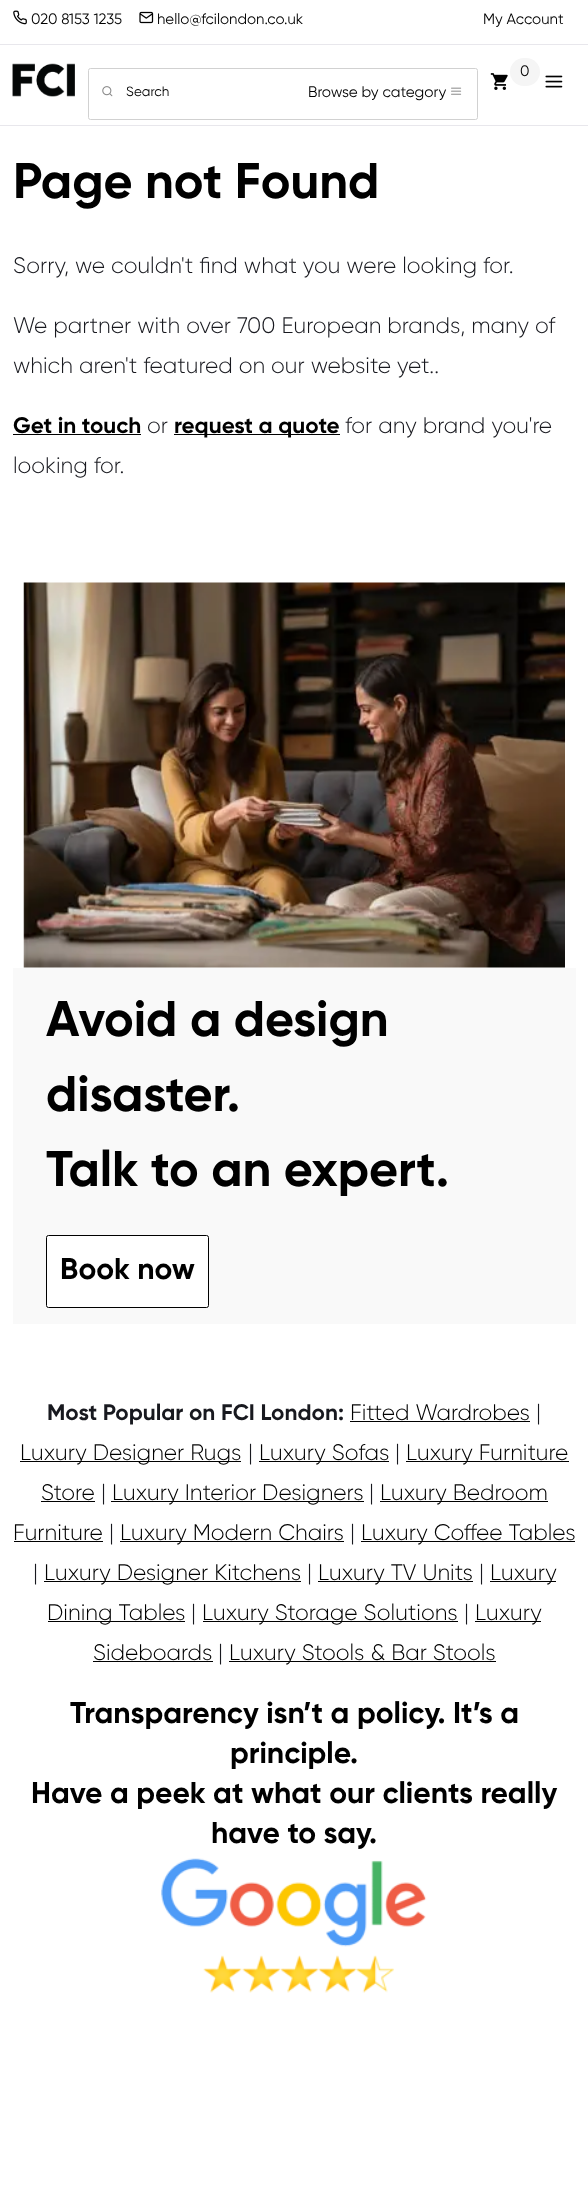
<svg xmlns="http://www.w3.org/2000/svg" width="588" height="2186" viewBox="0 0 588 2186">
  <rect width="100%" height="100%" fill="rgb(255,255,255)"/>
  <rect x="0" y="125" width="588" height="1" fill="rgb(232,231,236)"/>
  <rect x="0" y="44" width="588" height="1" fill="rgb(232,231,236)"/>
  <image x="13" y="10" width="14" height="15" href="pic1.png"/>
  <text x="31" y="24" font-family="'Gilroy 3'" font-size="15" fill="rgb(0,0,0)">020 8153 1235</text>
  <image x="139" y="11" width="15" height="13" href="pic2.png"/>
  <g font-family="'Gilroy 3'" font-size="15" fill="rgb(0,0,0)">
    <text x="157" y="24">hello@fcilondon.co.uk</text>
    <text x="483" y="24">My Account</text>
  </g>
  <image x="12" y="63" width="63" height="34" href="pic3.png"/>
  <rect x="510" y="58" width="30" height="28" rx="14" fill="rgb(245,245,245)"/>
  <text x="520" y="76" font-family="'Gilroy 3'" font-size="15" fill="rgb(0,0,0)">0</text>
  <image x="490" y="73" width="18" height="17" href="pic4.png"/>
  <image x="545" y="75" width="18" height="13" href="pic5.png"/>
  <rect x="88.5" y="68.5" width="389" height="51" rx="2" fill="none" stroke="rgb(209,209,209)"/>
  <image x="102" y="86" width="11" height="11" href="pic6.png"/>
  <text x="126" y="96" font-family="'Gilroy 3'" font-size="13.5" fill="rgb(0,0,0)">Search</text>
  <text x="308" y="97" font-family="'Gilroy 3'" font-size="15.25" fill="rgb(0,0,0)">Browse by category</text>
  <image x="451" y="87" width="11" height="8" href="pic7.png"/>
  <text x="13" y="198" font-family="Gilroy" font-size="50" fill="rgb(0,0,0)">Page not Found</text>
  <g font-family="'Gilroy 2'" font-size="22.5" fill="rgb(24,25,31)">
    <text x="13" y="273">Sorry, we couldn't find what you were looking for.</text>
    <text>
      <tspan x="13" y="333">We partner with over 700 European brands, many of</tspan>
      <tspan x="13" y="373">which aren't featured on our website yet..</tspan>
    </text>
  </g>
  <text x="13" y="433" font-family="Gilroy" font-size="22.5" fill="rgb(0,0,0)">Get in touch</text>
  <rect x="13" y="434" width="128" height="1" fill="rgb(0,0,0)"/>
  <text x="147" y="433" font-family="'Gilroy 2'" font-size="22.5" fill="rgb(24,25,31)">or</text>
  <rect x="174" y="434" width="166" height="1" fill="rgb(0,0,0)"/>
  <text x="174" y="433" font-family="Gilroy" font-size="22.5" fill="rgb(0,0,0)">request a quote</text>
  <g font-family="'Gilroy 2'" font-size="22.5" fill="rgb(24,25,31)">
    <text x="345" y="433">for any brand you're</text>
    <text x="13" y="473">looking for.</text>
  </g>
  <image x="23" y="582" width="542" height="386" href="pic8.png"/>
  <rect x="13" y="968" width="563" height="356" fill="rgb(249,249,249)"/>
  <g font-family="Gilroy" font-size="50" fill="rgb(0,0,0)">
    <text>
      <tspan x="46" y="1036">Avoid a design</tspan>
      <tspan x="46" y="1111">disaster.</tspan>
      <tspan x="46" y="1186">Talk to an expert.</tspan>
    </text>
  </g>
  <rect x="46.5" y="1235.5" width="162" height="72" rx="2" fill="rgb(255,255,255)" stroke="rgb(0,0,0)"/>
  <text x="60" y="1279" font-family="Gilroy" font-size="30" fill="rgb(0,0,0)">Book now</text>
  <text x="47" y="1420" font-family="Gilroy" font-size="22.5" fill="rgb(24,25,31)">Most Popular on FCI London:</text>
  <text x="350" y="1420" font-family="'Gilroy 2'" font-size="22.5" fill="rgb(0,0,0)">Fitted Wardrobes</text>
  <rect x="350" y="1421" width="180" height="1" fill="rgb(0,0,0)"/>
  <text x="536" y="1420" font-family="'Gilroy 2'" font-size="22.5" fill="rgb(24,25,31)">|</text>
  <rect x="20" y="1461" width="221" height="1" fill="rgb(0,0,0)"/>
  <text x="20" y="1460" font-family="'Gilroy 2'" font-size="22.5" fill="rgb(0,0,0)">Luxury Designer Rugs</text>
  <text x="248" y="1460" font-family="'Gilroy 2'" font-size="22.5" fill="rgb(24,25,31)">|</text>
  <rect x="259" y="1461" width="130" height="1" fill="rgb(0,0,0)"/>
  <text x="259" y="1460" font-family="'Gilroy 2'" font-size="22.5" fill="rgb(0,0,0)">Luxury Sofas</text>
  <text x="395" y="1460" font-family="'Gilroy 2'" font-size="22.5" fill="rgb(24,25,31)">|</text>
  <rect x="406" y="1461" width="163" height="1" fill="rgb(0,0,0)"/>
  <g font-family="'Gilroy 2'" font-size="22.5" fill="rgb(0,0,0)">
    <text x="406" y="1460">Luxury Furniture</text>
    <text x="41" y="1500">Store</text>
  </g>
  <rect x="41" y="1501" width="54" height="1" fill="rgb(0,0,0)"/>
  <text x="101" y="1500" font-family="'Gilroy 2'" font-size="22.5" fill="rgb(24,25,31)">|</text>
  <rect x="111" y="1501" width="253" height="1" fill="rgb(0,0,0)"/>
  <text x="112" y="1500" font-family="'Gilroy 2'" font-size="22.5" fill="rgb(0,0,0)">Luxury Interior Designers</text>
  <text x="369" y="1500" font-family="'Gilroy 2'" font-size="22.5" fill="rgb(24,25,31)">|</text>
  <rect x="380" y="1501" width="168" height="1" fill="rgb(0,0,0)"/>
  <g font-family="'Gilroy 2'" font-size="22.5" fill="rgb(0,0,0)">
    <text x="380" y="1500">Luxury Bedroom</text>
    <text x="13" y="1540">Furniture</text>
  </g>
  <rect x="14" y="1541" width="89" height="1" fill="rgb(0,0,0)"/>
  <text x="109" y="1540" font-family="'Gilroy 2'" font-size="22.5" fill="rgb(24,25,31)">|</text>
  <rect x="120" y="1541" width="224" height="1" fill="rgb(0,0,0)"/>
  <text x="120" y="1540" font-family="'Gilroy 2'" font-size="22.5" fill="rgb(0,0,0)">Luxury Modern Chairs</text>
  <text x="350" y="1540" font-family="'Gilroy 2'" font-size="22.5" fill="rgb(24,25,31)">|</text>
  <rect x="361" y="1541" width="214" height="1" fill="rgb(0,0,0)"/>
  <text x="361" y="1540" font-family="'Gilroy 2'" font-size="22.5" fill="rgb(0,0,0)">Luxury Coffee Tables</text>
  <text x="33" y="1580" font-family="'Gilroy 2'" font-size="22.5" fill="rgb(24,25,31)">|</text>
  <rect x="44" y="1581" width="257" height="1" fill="rgb(0,0,0)"/>
  <text x="44" y="1580" font-family="'Gilroy 2'" font-size="22.5" fill="rgb(0,0,0)">Luxury Designer Kitchens</text>
  <text x="307" y="1580" font-family="'Gilroy 2'" font-size="22.5" fill="rgb(24,25,31)">|</text>
  <rect x="318" y="1581" width="155" height="1" fill="rgb(0,0,0)"/>
  <text x="318" y="1580" font-family="'Gilroy 2'" font-size="22.5" fill="rgb(0,0,0)">Luxury TV Units</text>
  <text x="479" y="1580" font-family="'Gilroy 2'" font-size="22.5" fill="rgb(24,25,31)">|</text>
  <rect x="490" y="1581" width="66" height="1" fill="rgb(0,0,0)"/>
  <text x="490" y="1580" font-family="'Gilroy 2'" font-size="22.5" fill="rgb(0,0,0)">Luxury</text>
  <rect x="48" y="1621" width="137" height="1" fill="rgb(0,0,0)"/>
  <text x="47" y="1620" font-family="'Gilroy 2'" font-size="22.5" fill="rgb(0,0,0)">Dining Tables</text>
  <text x="191" y="1620" font-family="'Gilroy 2'" font-size="22.5" fill="rgb(24,25,31)">|</text>
  <rect x="203" y="1621" width="255" height="1" fill="rgb(0,0,0)"/>
  <text x="202" y="1620" font-family="'Gilroy 2'" font-size="22.5" fill="rgb(0,0,0)">Luxury Storage Solutions</text>
  <text x="464" y="1620" font-family="'Gilroy 2'" font-size="22.5" fill="rgb(24,25,31)">|</text>
  <rect x="475" y="1621" width="66" height="1" fill="rgb(0,0,0)"/>
  <g font-family="'Gilroy 2'" font-size="22.5" fill="rgb(0,0,0)">
    <text x="475" y="1620">Luxury</text>
    <text x="93" y="1660">Sideboards</text>
  </g>
  <rect x="93" y="1661" width="120" height="1" fill="rgb(0,0,0)"/>
  <text x="218" y="1660" font-family="'Gilroy 2'" font-size="22.5" fill="rgb(24,25,31)">|</text>
  <rect x="229" y="1661" width="267" height="1" fill="rgb(0,0,0)"/>
  <text x="229" y="1660" font-family="'Gilroy 2'" font-size="22.5" fill="rgb(0,0,0)">Luxury Stools &amp; Bar Stools</text>
  <g font-family="Gilroy" font-size="30" fill="rgb(0,0,0)">
    <text x="70" y="1723">Transparency isn’t a policy. It’s a</text>
    <text x="230" y="1763">principle.</text>
    <text x="31" y="1803">Have a peek at what our clients really</text>
    <text x="211" y="1843">have to say.</text>
  </g>
  <image x="161" y="1858" width="266" height="135" href="pic9.png"/>
</svg>
